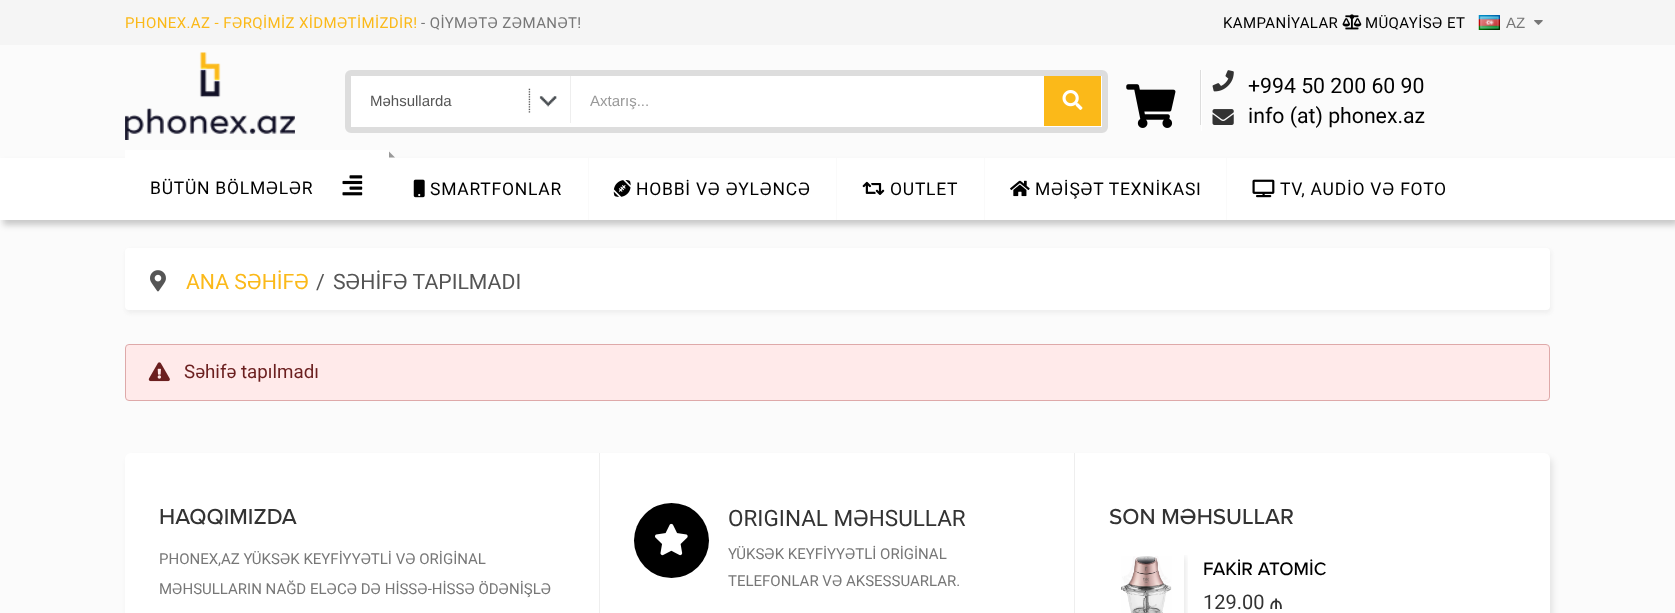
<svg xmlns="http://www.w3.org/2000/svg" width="1675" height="613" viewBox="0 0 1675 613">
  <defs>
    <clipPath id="clip1"><rect x="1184" y="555" width="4" height="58"/></clipPath>
  </defs>
  <rect width="100%" height="100%" fill="rgb(251,251,251)"/>
  <rect x="0" y="0" width="1675" height="45" fill="rgb(245,245,245)"/>
  <text x="125" y="28" font-family="Roboto" font-size="15" letter-spacing="0.4" fill="rgb(251,185,25)">PHONEX.AZ - FƏRQİMİZ XİDMƏTİMİZDİR!</text>
  <text x="421" y="28" font-family="Roboto" font-size="15" letter-spacing="0.4" fill="rgb(119,119,119)">- QİYMƏTƏ ZƏMANƏT!</text>
  <text x="1223" y="28" font-family="Roboto" font-size="15" letter-spacing="0.4" fill="rgb(0,0,0)">KAMPANİYALAR</text>
  <image x="1342" y="14" width="20" height="16" href="pic1.png"/>
  <text x="1365" y="28" font-family="Roboto" font-size="15" letter-spacing="0.4" fill="rgb(0,0,0)">MÜQAYİSƏ ET</text>
  <image x="1478" y="15" width="22" height="15" href="pic2.png"/>
  <text x="1506" y="28" font-family="Liberation Sans" font-size="15" fill="rgb(119,119,119)">AZ</text>
  <image x="1534" y="20" width="9" height="5" href="pic3.png"/>
  <image x="125" y="52" width="170" height="88" href="pic4.png"/>
  <rect x="348" y="73" width="757" height="57" rx="3" fill="rgb(255,255,255)" stroke="rgb(221,221,221)" stroke-width="6"/>
  <image x="528" y="88" width="29" height="25" href="pic5.png"/>
  <text x="370" y="106" font-family="Liberation Sans" font-size="15" fill="rgb(85,85,85)">Məhsullarda</text>
  <rect x="570" y="76" width="1" height="47" fill="rgb(238,238,238)"/>
  <text x="590" y="106" font-family="Liberation Sans" font-size="15" fill="rgb(153,153,153)">Axtarış...</text>
  <rect x="1044" y="76" width="57" height="50" fill="rgb(251,185,25)"/>
  <image x="1062" y="90" width="21" height="20" href="pic6.png"/>
  <rect x="1200" y="70" width="1" height="55" fill="rgb(221,221,221)"/>
  <image x="1126" y="84" width="50" height="44" href="pic7.png"/>
  <rect x="1201" y="70" width="1" height="61" fill="rgb(255,255,255)"/>
  <image x="1212" y="70" width="22" height="22" href="pic8.png"/>
  <text x="1248" y="93" font-family="Roboto" font-size="21.25" fill="rgb(0,0,0)">+994 50 200 60 90</text>
  <image x="1212" y="109" width="22" height="16" href="pic9.png"/>
  <text x="1248" y="123" font-family="Roboto" font-size="21.25" fill="rgb(0,0,0)">info (at) phonex.az</text>
  <rect x="3" y="163" width="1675" height="62" fill="rgba(0,0,0,0.2)" filter="blur(3px)"/>
  <rect x="0" y="158" width="1675" height="62" fill="rgb(255,255,255)"/>
  <path d="M387.5 157.5V150L395 157.5Z" fill="rgb(153,153,153)"/>
  <rect x="125" y="150" width="264" height="8" fill="rgb(255,255,255)"/>
  <text x="150" y="194" font-family="Roboto" font-size="17.5" letter-spacing="0.75" fill="rgb(0,0,0)">BÜTÜN BÖLMƏLƏR</text>
  <image x="342" y="175" width="21" height="21" href="pic10.png"/>
  <image x="413" y="179" width="12" height="19" href="pic11.png"/>
  <text x="430" y="195" font-family="Roboto" font-size="17.5" letter-spacing="0.75" fill="rgb(0,0,0)">SMARTFONLAR</text>
  <rect x="588" y="158" width="1" height="62" fill="rgb(250,250,250)"/>
  <image x="613" y="180" width="18" height="17" href="pic12.png"/>
  <text x="636" y="195" font-family="Roboto" font-size="17.5" letter-spacing="0.75" fill="rgb(0,0,0)">HOBBİ VƏ ƏYLƏNCƏ</text>
  <rect x="836" y="158" width="1" height="62" fill="rgb(250,250,250)"/>
  <image x="862" y="181" width="23" height="14" href="pic13.png"/>
  <text x="890" y="195" font-family="Roboto" font-size="17.5" letter-spacing="0.75" fill="rgb(0,0,0)">OUTLET</text>
  <rect x="984" y="158" width="1" height="62" fill="rgb(250,250,250)"/>
  <image x="1010" y="180" width="20" height="17" href="pic14.png"/>
  <text x="1035" y="195" font-family="Roboto" font-size="17.5" letter-spacing="0.75" fill="rgb(0,0,0)">MƏİŞƏT TEXNİKASI</text>
  <rect x="1226" y="158" width="1" height="62" fill="rgb(250,250,250)"/>
  <image x="1252" y="179" width="23" height="19" href="pic15.png"/>
  <text x="1280" y="195" font-family="Roboto" font-size="17.5" letter-spacing="0.75" fill="rgb(0,0,0)">TV, AUDİO VƏ FOTO</text>
  <rect x="126" y="250" width="1425" height="63" rx="4" fill="rgb(238,238,238)" filter="blur(2px)"/>
  <rect x="125" y="248" width="1425" height="62" rx="4" fill="rgb(255,255,255)"/>
  <image x="150" y="270" width="16" height="22" href="pic16.png"/>
  <text x="186" y="289" font-family="Roboto" font-size="21.25" fill="rgb(251,185,25)">ANA SƏHİFƏ</text>
  <g font-family="Roboto" font-size="21.25" fill="rgb(85,85,85)">
    <text x="316" y="289">/</text>
    <text x="333" y="289">SƏHİFƏ TAPILMADI</text>
  </g>
  <rect x="125.5" y="344.5" width="1424" height="56" rx="3.5" fill="rgb(255,234,234)" stroke="rgb(222,169,169)"/>
  <image x="148" y="362" width="22" height="20" href="pic17.png"/>
  <text x="184" y="378" font-family="Roboto" font-size="18.75" fill="rgb(107,31,31)">Səhifə tapılmadı</text>
  <rect x="128" y="458" width="1425" height="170" rx="6" fill="rgba(0,0,0,0.09)" filter="blur(3px)"/>
  <rect x="125" y="453" width="1425" height="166" rx="6" fill="rgb(255,255,255)"/>
  <rect x="599" y="453" width="1" height="160" fill="rgb(238,238,238)"/>
  <text x="159" y="524" font-family="Proxima Nova" font-size="22.5" font-weight="500" fill="rgb(51,51,51)">HAQQIMIZDA</text>
  <g font-family="Roboto" font-size="15" fill="rgb(119,119,119)">
    <text x="159" y="564">PHONEX,AZ YÜKSƏK KEYFİYYƏTLİ VƏ ORİGİNAL</text>
    <text x="159" y="594">MƏHSULLARIN NAĞD ELƏCƏ DƏ HİSSƏ-HİSSƏ ÖDƏNİŞLƏ</text>
  </g>
  <rect x="1074" y="453" width="1" height="160" fill="rgb(238,238,238)"/>
  <circle cx="671.5" cy="540.5" r="37.5" fill="rgb(0,0,0)"/>
  <image x="655" y="523" width="33" height="33" href="pic18.png"/>
  <text x="728" y="526" font-family="Roboto" font-size="22.5" fill="rgb(51,51,51)">ORIGINAL MƏHSULLAR</text>
  <g font-family="Roboto" font-size="15" fill="rgb(119,119,119)">
    <text>
      <tspan x="728" y="559">YÜKSƏK KEYFİYYƏTLİ ORİGİNAL</tspan>
      <tspan x="728" y="586">TELEFONLAR VƏ AKSESSUARLAR.</tspan>
    </text>
  </g>
  <text x="1109" y="524" font-family="Proxima Nova" font-size="22.5" font-weight="500" fill="rgb(51,51,51)">SON MƏHSULLAR</text>
  <g clip-path="url(#clip1)">
    <rect x="1111" y="555" width="75" height="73" rx="6" fill="rgba(0,0,0,0.09)" filter="blur(3px)"/>
  </g>
  <image x="1121" y="556" width="51" height="57" href="pic19.png"/>
  <text x="1203" y="575" font-family="Proxima Nova" font-size="18.75" font-weight="500" fill="rgb(0,0,0)">FAKİR ATOMİC</text>
  <text x="1203" y="609" font-family="Roboto" font-size="20" fill="rgb(51,51,51)">129.00 ₼</text>
</svg>
